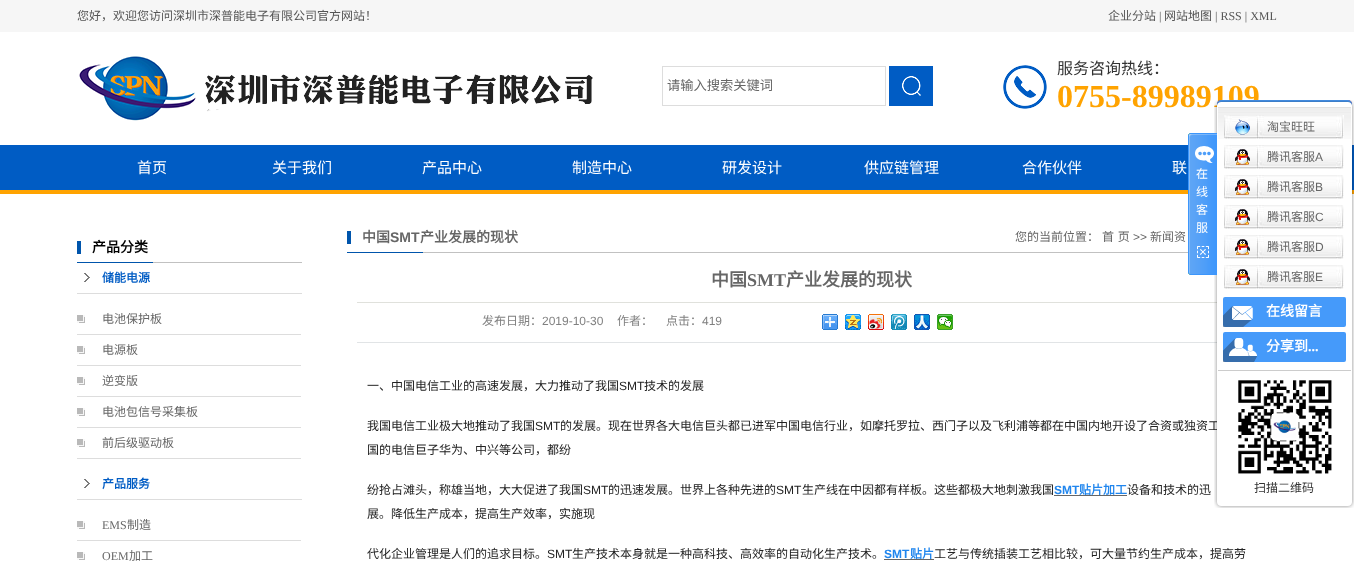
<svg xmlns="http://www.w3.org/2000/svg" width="1354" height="565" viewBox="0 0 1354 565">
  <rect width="100%" height="100%" fill="rgb(255,255,255)"/>
  <rect x="0" y="0" width="1354" height="32" fill="rgb(246,246,246)"/>
  <g font-family="Noto Sans CJK SC" font-size="12" fill="rgb(85,85,85)">
    <text x="77" y="20">您好，欢迎您访问深圳市深普能电子有限公司官方网站！</text>
    <text x="1108" y="20">企业分站</text>
  </g>
  <text x="1159" y="20" font-family="Liberation Serif" font-size="12" fill="rgb(85,85,85)">|</text>
  <text x="1164" y="20" font-family="Noto Sans CJK SC" font-size="12" fill="rgb(85,85,85)">网站地图</text>
  <text x="1215" y="20" font-family="Liberation Serif" font-size="12" fill="rgb(85,85,85)">| RSS | XML</text>
  <image x="79" y="56" width="514" height="65" href="pic1.png"/>
  <rect x="662.5" y="66.5" width="223" height="39" fill="none" stroke="rgb(221,221,221)"/>
  <text x="667" y="90" font-family="Noto Sans CJK SC" font-size="13.25" fill="rgb(102,102,102)">请输入搜索关键词</text>
  <rect x="889" y="66" width="44" height="40" fill="rgb(0,92,196)"/>
  <image x="902" y="76" width="19" height="20" href="pic2.png"/>
  <image x="1003" y="65" width="44" height="44" href="pic3.png"/>
  <text x="1057" y="74" font-family="Noto Sans CJK SC" font-size="16" fill="rgb(51,51,51)">服务咨询热线：</text>
  <text x="1057" y="107" font-family="Liberation Serif" font-size="32" font-weight="bold" fill="rgb(255,163,0)">0755-89989109</text>
  <rect x="0" y="145" width="1354" height="45" fill="rgb(0,92,196)"/>
  <rect x="0" y="190" width="1354" height="4" fill="rgb(255,163,0)"/>
  <g font-family="Noto Sans CJK SC" font-size="15" fill="rgb(255,255,255)">
    <text x="137" y="173">首页</text>
    <text x="272" y="173">关于我们</text>
    <text x="422" y="173">产品中心</text>
    <text x="572" y="173">制造中心</text>
    <text x="722" y="173">研发设计</text>
    <text x="864" y="173">供应链管理</text>
    <text x="1022" y="173">合作伙伴</text>
    <text x="1172" y="173">联</text>
  </g>
  <rect x="357" y="302" width="860" height="1" fill="rgb(224,225,220)"/>
  <rect x="357" y="342" width="860" height="1" fill="rgb(225,228,230)"/>
  <text x="560" y="430" font-family="Noto Sans CJK SC" font-size="12" fill="rgb(34,34,34)">的发展。现在世界各大电信巨头都已进军中国电信行业，如摩托罗拉、西门子以及飞利浦等都在中国内地开设了合资或独资工</text>
  <image x="1214" y="107" width="140" height="393" href="pic7.png"/>
  <image x="1188" y="133" width="29" height="142" href="pic4.png"/>
  <g font-family="Noto Sans CJK SC" font-size="12" fill="rgb(255,255,255)">
    <text>
      <tspan x="1196" y="178">在</tspan>
      <tspan x="1196" y="196">线</tspan>
      <tspan x="1196" y="214">客</tspan>
      <tspan x="1196" y="232">服</tspan>
    </text>
  </g>
  <image x="1197" y="246" width="12" height="12" href="pic5.png"/>
  <image x="1214" y="100" width="140" height="7" href="pic6.png"/>
  <image x="1218" y="107" width="133" height="32" href="pic8.png"/>
  <image x="1224" y="115" width="120" height="24" href="pic9.png"/>
  <image x="1235" y="119" width="15" height="16" href="pic10.png"/>
  <text x="1267" y="131" font-family="Noto Sans CJK SC" font-size="12" fill="rgb(102,102,102)">淘宝旺旺</text>
  <image x="1224" y="145" width="120" height="24" href="pic9.png"/>
  <image x="1235" y="149" width="15" height="16" href="pic11.png"/>
  <text x="1267" y="161" font-family="Noto Sans CJK SC" font-size="12" fill="rgb(102,102,102)">腾讯客服</text>
  <text x="1315" y="161" font-family="Liberation Sans" font-size="12" fill="rgb(102,102,102)">A</text>
  <image x="1224" y="175" width="120" height="24" href="pic9.png"/>
  <image x="1235" y="179" width="15" height="16" href="pic11.png"/>
  <text x="1267" y="191" font-family="Noto Sans CJK SC" font-size="12" fill="rgb(102,102,102)">腾讯客服</text>
  <text x="1315" y="191" font-family="Liberation Sans" font-size="12" fill="rgb(102,102,102)">B</text>
  <image x="1224" y="205" width="120" height="24" href="pic9.png"/>
  <image x="1235" y="209" width="15" height="16" href="pic11.png"/>
  <text x="1267" y="221" font-family="Noto Sans CJK SC" font-size="12" fill="rgb(102,102,102)">腾讯客服</text>
  <text x="1315" y="221" font-family="Liberation Sans" font-size="12" fill="rgb(102,102,102)">C</text>
  <image x="1224" y="235" width="120" height="24" href="pic9.png"/>
  <image x="1235" y="239" width="15" height="16" href="pic11.png"/>
  <text x="1267" y="251" font-family="Noto Sans CJK SC" font-size="12" fill="rgb(102,102,102)">腾讯客服</text>
  <text x="1315" y="251" font-family="Liberation Sans" font-size="12" fill="rgb(102,102,102)">D</text>
  <image x="1224" y="265" width="120" height="24" href="pic9.png"/>
  <image x="1235" y="269" width="15" height="16" href="pic11.png"/>
  <text x="1267" y="281" font-family="Noto Sans CJK SC" font-size="12" fill="rgb(102,102,102)">腾讯客服</text>
  <text x="1315" y="281" font-family="Liberation Sans" font-size="12" fill="rgb(102,102,102)">E</text>
  <rect x="1223" y="297" width="123" height="30" rx="2" fill="rgb(69,154,250)"/>
  <image x="1223" y="306" width="30" height="21" href="pic12.png"/>
  <text x="1266" y="316" font-family="Noto Sans CJK SC" font-size="14" font-weight="bold" fill="rgb(255,255,255)">在线留言</text>
  <rect x="1223" y="332" width="123" height="30" rx="2" fill="rgb(69,154,250)"/>
  <image x="1223" y="338" width="34" height="24" href="pic13.png"/>
  <text x="1266" y="351" font-family="Noto Sans CJK SC" font-size="14" font-weight="bold" fill="rgb(255,255,255)">分享到</text>
  <text x="1308" y="351" font-family="Liberation Serif" font-size="14" font-weight="bold" fill="rgb(255,255,255)">...</text>
  <rect x="1218" y="370" width="133" height="1" fill="rgb(204,204,204)"/>
  <image x="1238" y="380" width="94" height="94" href="pic14.png"/>
  <text x="1254" y="492" font-family="Noto Sans CJK SC" font-size="12" fill="rgb(51,51,51)">扫描二维码</text>
  <image x="1214" y="500" width="140" height="8" href="pic15.png"/>
  <image x="77" y="241" width="225" height="22" href="pic16.png"/>
  <text x="92" y="252" font-family="Noto Sans CJK SC" font-size="14" font-weight="bold" fill="rgb(0,0,0)">产品分类</text>
  <image x="84" y="273" width="6" height="9" href="pic17.png"/>
  <rect x="77" y="293" width="225" height="1" fill="rgb(221,221,221)"/>
  <text x="102" y="282" font-family="Noto Sans CJK SC" font-size="12" font-weight="bold" fill="rgb(0,92,196)">储能电源</text>
  <image x="77" y="315" width="8" height="8" href="pic18.png"/>
  <rect x="77" y="334" width="224" height="1" fill="rgb(221,221,221)"/>
  <text x="102" y="323" font-family="Noto Sans CJK SC" font-size="12" fill="rgb(102,102,102)">电池保护板</text>
  <image x="77" y="346" width="8" height="8" href="pic18.png"/>
  <rect x="77" y="365" width="224" height="1" fill="rgb(221,221,221)"/>
  <text x="102" y="354" font-family="Noto Sans CJK SC" font-size="12" fill="rgb(102,102,102)">电源板</text>
  <image x="77" y="377" width="8" height="8" href="pic18.png"/>
  <rect x="77" y="396" width="224" height="1" fill="rgb(221,221,221)"/>
  <text x="102" y="385" font-family="Noto Sans CJK SC" font-size="12" fill="rgb(102,102,102)">逆变版</text>
  <image x="77" y="408" width="8" height="8" href="pic18.png"/>
  <rect x="77" y="427" width="224" height="1" fill="rgb(221,221,221)"/>
  <text x="102" y="416" font-family="Noto Sans CJK SC" font-size="12" fill="rgb(102,102,102)">电池包信号采集板</text>
  <image x="77" y="439" width="8" height="8" href="pic18.png"/>
  <rect x="77" y="458" width="224" height="1" fill="rgb(221,221,221)"/>
  <text x="102" y="447" font-family="Noto Sans CJK SC" font-size="12" fill="rgb(102,102,102)">前后级驱动板</text>
  <image x="84" y="479" width="6" height="9" href="pic17.png"/>
  <rect x="77" y="499" width="225" height="1" fill="rgb(221,221,221)"/>
  <text x="102" y="488" font-family="Noto Sans CJK SC" font-size="12" font-weight="bold" fill="rgb(0,92,196)">产品服务</text>
  <image x="77" y="521" width="8" height="8" href="pic18.png"/>
  <rect x="77" y="540" width="224" height="1" fill="rgb(221,221,221)"/>
  <text x="102" y="529" font-family="Liberation Serif" font-size="12" fill="rgb(102,102,102)">EMS</text>
  <text x="127" y="529" font-family="Noto Sans CJK SC" font-size="12" fill="rgb(102,102,102)">制造</text>
  <image x="77" y="552" width="8" height="8" href="pic18.png"/>
  <text x="102" y="560" font-family="Liberation Serif" font-size="12" fill="rgb(102,102,102)">OEM</text>
  <text x="129" y="560" font-family="Noto Sans CJK SC" font-size="12" fill="rgb(102,102,102)">加工</text>
  <image x="347" y="231" width="841" height="22" href="pic19.png"/>
  <text x="362" y="242" font-family="Noto Sans CJK SC" font-size="14" font-weight="bold" fill="rgb(102,102,102)">中国</text>
  <text x="390" y="242" font-family="Liberation Sans" font-size="14" font-weight="bold" fill="rgb(102,102,102)">SMT</text>
  <text x="420" y="242" font-family="Noto Sans CJK SC" font-size="14" font-weight="bold" fill="rgb(102,102,102)">产业发展的现状</text>
  <g font-family="Noto Sans CJK SC" font-size="12" fill="rgb(102,102,102)">
    <text x="1015" y="241">您的当前位置：</text>
    <text x="1102" y="241" word-spacing="1">首 页</text>
  </g>
  <text x="1133" y="241" font-family="Liberation Sans" font-size="12" fill="rgb(102,102,102)">&gt;&gt;</text>
  <text x="1150" y="241" font-family="Noto Sans CJK SC" font-size="12" fill="rgb(102,102,102)">新闻资</text>
  <text x="711" y="286" font-family="Noto Sans CJK SC" font-size="18" font-weight="bold" fill="rgb(102,102,102)">中国</text>
  <text x="747" y="286" font-family="Liberation Serif" font-size="18" font-weight="bold" fill="rgb(102,102,102)">SMT</text>
  <text x="786" y="286" font-family="Noto Sans CJK SC" font-size="18" font-weight="bold" fill="rgb(102,102,102)">产业发展的现状</text>
  <text x="482" y="325" font-family="Noto Sans CJK SC" font-size="12" fill="rgb(128,128,128)">发布日期：</text>
  <text x="542" y="325" font-family="Liberation Sans" font-size="12" fill="rgb(128,128,128)">2019-10-30</text>
  <g font-family="Noto Sans CJK SC" font-size="12" fill="rgb(128,128,128)">
    <text x="617" y="325">作者：</text>
    <text x="666" y="325">点击：</text>
  </g>
  <text x="702" y="325" font-family="Liberation Sans" font-size="12" fill="rgb(128,128,128)">419</text>
  <image x="822" y="314" width="16" height="16" href="pic20.png"/>
  <image x="845" y="314" width="16" height="16" href="pic21.png"/>
  <image x="868" y="314" width="16" height="16" href="pic22.png"/>
  <image x="891" y="314" width="16" height="16" href="pic23.png"/>
  <image x="914" y="314" width="16" height="16" href="pic24.png"/>
  <image x="937" y="314" width="16" height="16" href="pic25.png"/>
  <text x="367" y="390" font-family="Noto Sans CJK SC" font-size="12" fill="rgb(34,34,34)">一、中国电信工业的高速发展，大力推动了我国</text>
  <text x="619" y="390" font-family="Liberation Sans" font-size="12" fill="rgb(34,34,34)">SMT</text>
  <g font-family="Noto Sans CJK SC" font-size="12" fill="rgb(34,34,34)">
    <text x="644" y="390">技术的发展</text>
    <text x="367" y="430">我国电信工业极大地推动了我国</text>
  </g>
  <text x="535" y="430" font-family="Liberation Sans" font-size="12" fill="rgb(34,34,34)">SMT</text>
  <g font-family="Noto Sans CJK SC" font-size="12" fill="rgb(34,34,34)">
    <text x="367" y="454">国的电信巨子华为、中兴等公司，都纷</text>
    <text x="367" y="494">纷抢占滩头，称雄当地，大大促进了我国</text>
  </g>
  <text x="583" y="494" font-family="Liberation Sans" font-size="12" fill="rgb(34,34,34)">SMT</text>
  <text x="608" y="494" font-family="Noto Sans CJK SC" font-size="12" fill="rgb(34,34,34)">的迅速发展。世界上各种先进的</text>
  <text x="776" y="494" font-family="Liberation Sans" font-size="12" fill="rgb(34,34,34)">SMT</text>
  <text x="802" y="494" font-family="Noto Sans CJK SC" font-size="12" fill="rgb(34,34,34)">生产线在中因都有样板。这些都极大地刺激我国</text>
  <text x="1054" y="494" font-family="Liberation Sans" font-size="12" font-weight="bold" fill="rgb(32,134,238)">SMT</text>
  <rect x="1054" y="495" width="73" height="1" fill="rgb(102,102,102)"/>
  <text x="1079" y="494" font-family="Noto Sans CJK SC" font-size="12" font-weight="bold" fill="rgb(32,134,238)">贴片加工</text>
  <g font-family="Noto Sans CJK SC" font-size="12" fill="rgb(34,34,34)">
    <text x="1127" y="494">设备和技术的迅</text>
    <text x="367" y="518">展。降低生产成本，提高生产效率，实施现</text>
    <text x="367" y="558">代化企业管理是人们的追求目标。</text>
  </g>
  <text x="547" y="558" font-family="Liberation Sans" font-size="12" fill="rgb(34,34,34)">SMT</text>
  <text x="572" y="558" font-family="Noto Sans CJK SC" font-size="12" fill="rgb(34,34,34)">生产技术本身就是一种高科技、高效率的自动化生产技术。</text>
  <text x="884" y="558" font-family="Liberation Sans" font-size="12" font-weight="bold" fill="rgb(32,134,238)">SMT</text>
  <rect x="884" y="559" width="50" height="1" fill="rgb(102,102,102)"/>
  <text x="910" y="558" font-family="Noto Sans CJK SC" font-size="12" font-weight="bold" fill="rgb(32,134,238)">贴片</text>
  <text x="934" y="558" font-family="Noto Sans CJK SC" font-size="12" fill="rgb(34,34,34)">工艺与传统插装工艺相比较，可大量节约生产成本，提高劳</text>
</svg>
